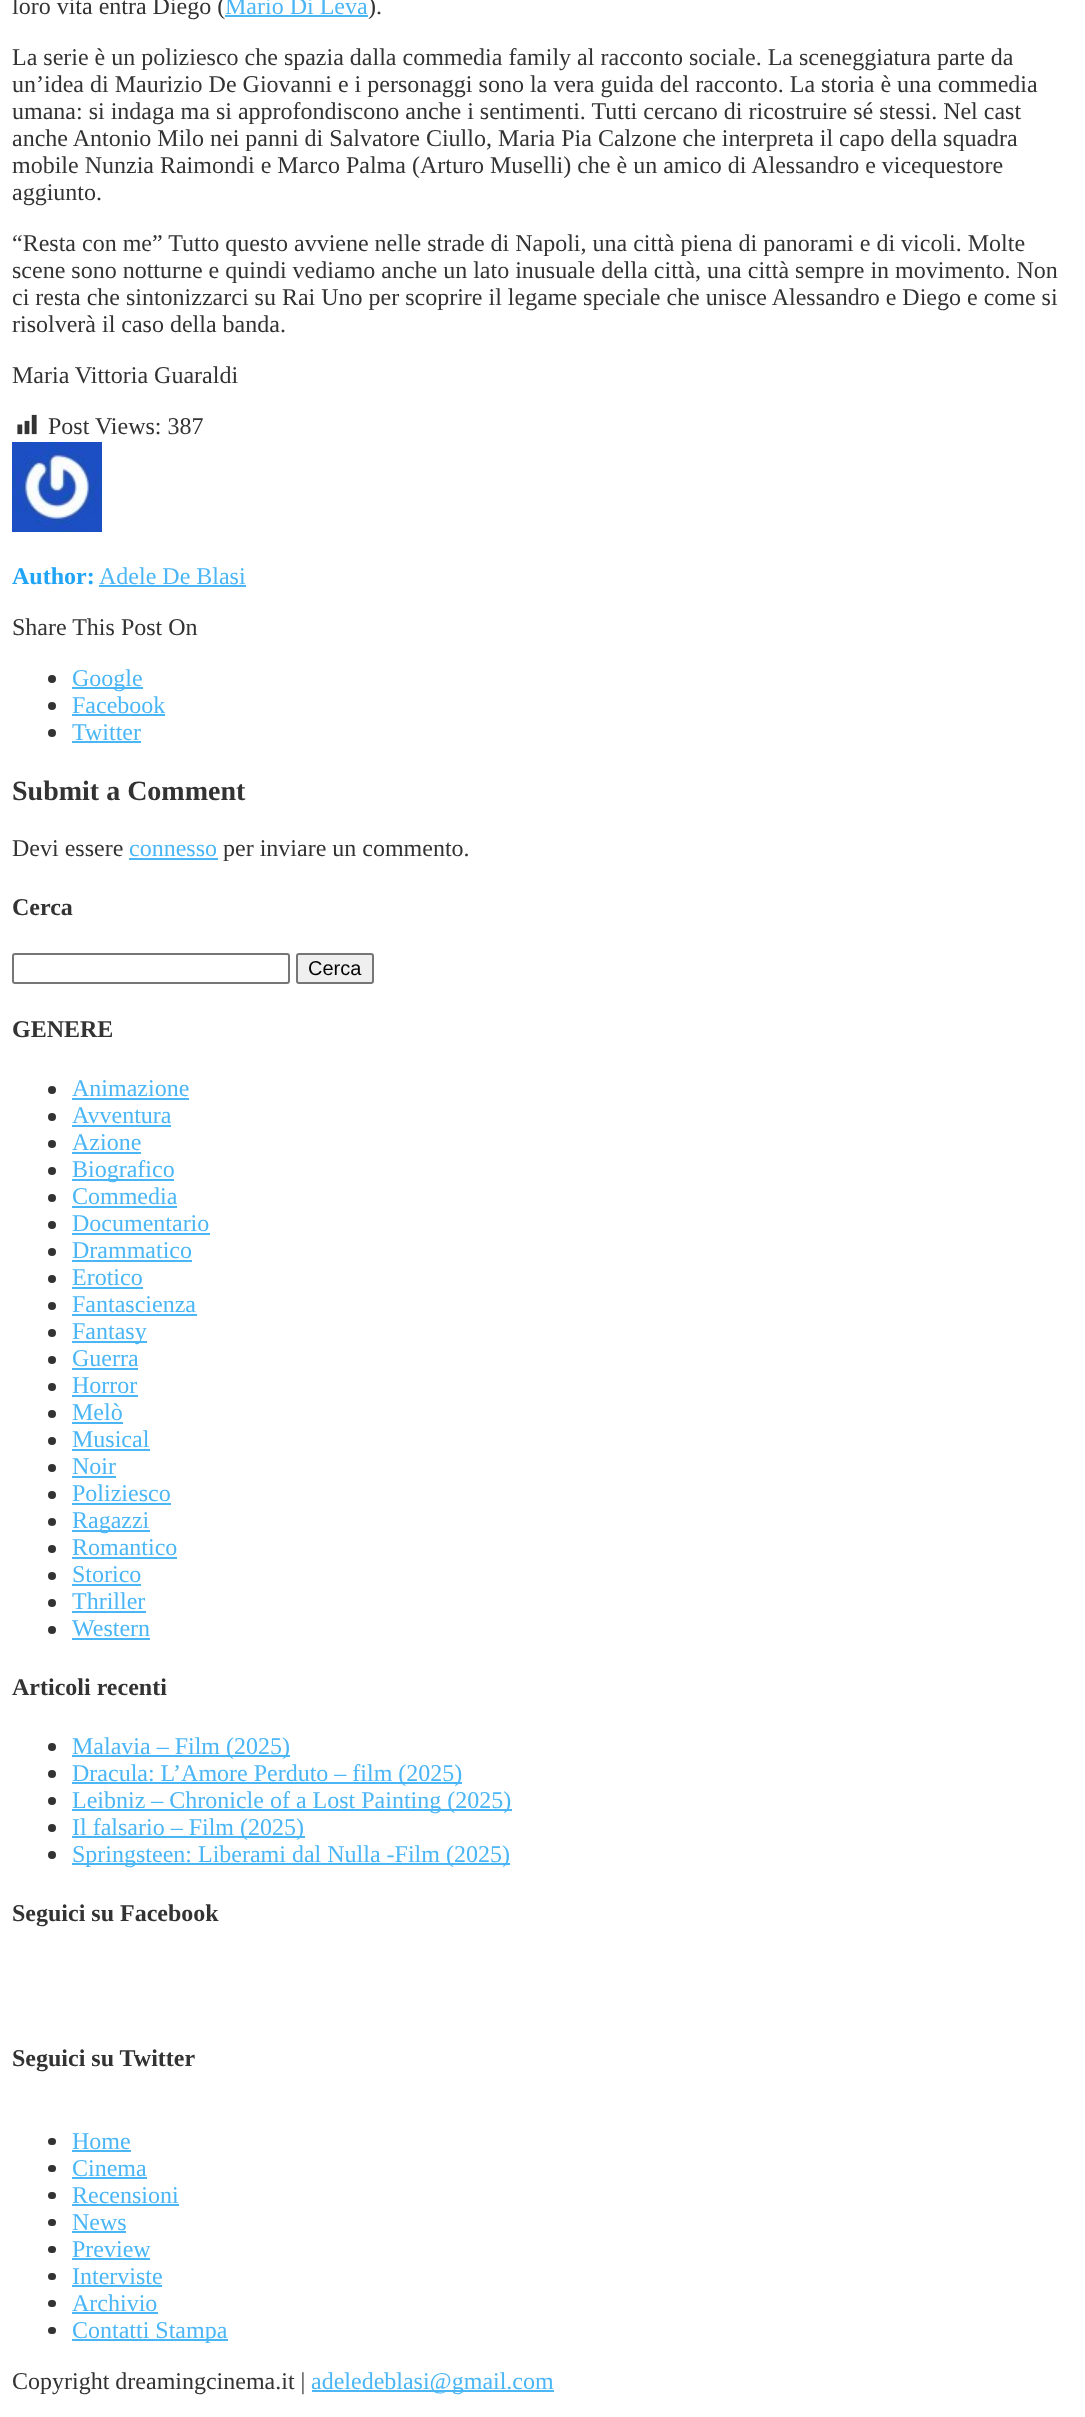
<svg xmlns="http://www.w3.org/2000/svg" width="1085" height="2417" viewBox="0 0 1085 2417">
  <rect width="100%" height="100%" fill="rgb(255,255,255)"/>
  <text x="12" y="14" font-family="Liberation Serif" font-size="24" fill="rgb(51,51,51)">loro vita entra Diego (</text>
  <text x="225" y="14" font-family="Liberation Serif" font-size="24" fill="rgb(75,182,245)">Mario Di Leva</text>
  <rect x="225" y="15" width="143" height="2" fill="rgb(75,182,245)"/>
  <g font-family="Liberation Serif" font-size="24" fill="rgb(51,51,51)">
    <text x="368" y="14">).</text>
    <text>
      <tspan x="12" y="65">La serie è un poliziesco che spazia dalla commedia family al racconto sociale. La sceneggiatura parte da</tspan>
      <tspan x="12" y="92">un’idea di Maurizio De Giovanni e i personaggi sono la vera guida del racconto. La storia è una commedia</tspan>
      <tspan x="12" y="119">umana: si indaga ma si approfondiscono anche i sentimenti. Tutti cercano di ricostruire sé stessi. Nel cast</tspan>
      <tspan x="12" y="146">anche Antonio Milo nei panni di Salvatore Ciullo, Maria Pia Calzone che interpreta il capo della squadra</tspan>
      <tspan x="12" y="173">mobile Nunzia Raimondi e Marco Palma (Arturo Muselli) che è un amico di Alessandro e vicequestore</tspan>
      <tspan x="12" y="200">aggiunto.</tspan>
    </text>
    <text>
      <tspan x="12" y="251">“Resta con me” Tutto questo avviene nelle strade di Napoli, una città piena di panorami e di vicoli. Molte</tspan>
      <tspan x="12" y="278">scene sono notturne e quindi vediamo anche un lato inusuale della città, una città sempre in movimento. Non</tspan>
      <tspan x="12" y="305">ci resta che sintonizzarci su Rai Uno per scoprire il legame speciale che unisce Alessandro e Diego e come si</tspan>
      <tspan x="12" y="332">risolverà il caso della banda.</tspan>
    </text>
    <text x="12" y="383">Maria Vittoria Guaraldi</text>
  </g>
  <image x="17" y="414" width="20" height="21" href="pic1.png"/>
  <text x="48" y="434" font-family="Liberation Serif" font-size="24" fill="rgb(51,51,51)">Post Views: 387</text>
  <image x="12" y="442" width="90" height="90" href="pic2.png"/>
  <text x="12" y="584" font-family="Liberation Serif" font-size="24" font-weight="bold" fill="rgb(31,164,246)">Author:</text>
  <text x="99" y="584" font-family="Liberation Serif" font-size="24" fill="rgb(75,182,245)">Adele De Blasi</text>
  <rect x="99" y="585" width="147" height="2" fill="rgb(75,182,245)"/>
  <text x="12" y="635" font-family="Liberation Serif" font-size="24" fill="rgb(51,51,51)">Share This Post On</text>
  <circle cx="52" cy="679" r="4" fill="rgb(51,51,51)"/>
  <rect x="72" y="687" width="71" height="2" fill="rgb(75,182,245)"/>
  <text x="72" y="686" font-family="Liberation Serif" font-size="24" fill="rgb(75,182,245)">Google</text>
  <circle cx="52" cy="706" r="4" fill="rgb(51,51,51)"/>
  <text x="72" y="713" font-family="Liberation Serif" font-size="24" fill="rgb(75,182,245)">Facebook</text>
  <rect x="72" y="714" width="93" height="2" fill="rgb(75,182,245)"/>
  <circle cx="52" cy="733" r="4" fill="rgb(51,51,51)"/>
  <text x="72" y="740" font-family="Liberation Serif" font-size="24" fill="rgb(75,182,245)">Twitter</text>
  <rect x="72" y="741" width="69" height="2" fill="rgb(75,182,245)"/>
  <text x="12" y="800" font-family="Liberation Serif" font-size="28" font-weight="bold" fill="rgb(51,51,51)">Submit a Comment</text>
  <text x="12" y="856" font-family="Liberation Serif" font-size="24" fill="rgb(51,51,51)">Devi essere</text>
  <text x="129" y="856" font-family="Liberation Serif" font-size="24" fill="rgb(75,182,245)">connesso</text>
  <rect x="129" y="858" width="89" height="2" fill="rgb(75,182,245)"/>
  <text x="223" y="856" font-family="Liberation Serif" font-size="24" fill="rgb(51,51,51)">per inviare un commento.</text>
  <text x="12" y="915" font-family="Liberation Serif" font-size="24" font-weight="bold" fill="rgb(51,51,51)">Cerca</text>
  <rect x="13" y="954" width="276" height="29" rx="2" fill="none" stroke="rgb(118,118,118)" stroke-width="2"/>
  <rect x="297" y="954" width="76" height="29" rx="2" fill="rgb(239,239,239)" stroke="rgb(118,118,118)" stroke-width="2"/>
  <text x="308" y="975" font-family="Liberation Sans" font-size="20" fill="rgb(0,0,0)">Cerca</text>
  <text x="12" y="1037" font-family="Liberation Serif" font-size="24" font-weight="bold" fill="rgb(51,51,51)">GENERE</text>
  <circle cx="52" cy="1090" r="4" fill="rgb(51,51,51)"/>
  <text x="72" y="1096" font-family="Liberation Serif" font-size="24" fill="rgb(75,182,245)">Animazione</text>
  <rect x="72" y="1098" width="117" height="2" fill="rgb(75,182,245)"/>
  <circle cx="52" cy="1117" r="4" fill="rgb(51,51,51)"/>
  <text x="72" y="1123" font-family="Liberation Serif" font-size="24" fill="rgb(75,182,245)">Avventura</text>
  <rect x="72" y="1125" width="99" height="2" fill="rgb(75,182,245)"/>
  <circle cx="52" cy="1144" r="4" fill="rgb(51,51,51)"/>
  <text x="72" y="1150" font-family="Liberation Serif" font-size="24" fill="rgb(75,182,245)">Azione</text>
  <rect x="72" y="1152" width="69" height="2" fill="rgb(75,182,245)"/>
  <circle cx="52" cy="1171" r="4" fill="rgb(51,51,51)"/>
  <rect x="72" y="1179" width="102" height="2" fill="rgb(75,182,245)"/>
  <text x="72" y="1177" font-family="Liberation Serif" font-size="24" fill="rgb(75,182,245)">Biografico</text>
  <circle cx="52" cy="1198" r="4" fill="rgb(51,51,51)"/>
  <text x="72" y="1204" font-family="Liberation Serif" font-size="24" fill="rgb(75,182,245)">Commedia</text>
  <rect x="72" y="1206" width="105" height="2" fill="rgb(75,182,245)"/>
  <circle cx="52" cy="1225" r="4" fill="rgb(51,51,51)"/>
  <text x="72" y="1231" font-family="Liberation Serif" font-size="24" fill="rgb(75,182,245)">Documentario</text>
  <rect x="72" y="1233" width="138" height="2" fill="rgb(75,182,245)"/>
  <circle cx="52" cy="1252" r="4" fill="rgb(51,51,51)"/>
  <text x="72" y="1258" font-family="Liberation Serif" font-size="24" fill="rgb(75,182,245)">Drammatico</text>
  <rect x="72" y="1260" width="120" height="2" fill="rgb(75,182,245)"/>
  <circle cx="52" cy="1279" r="4" fill="rgb(51,51,51)"/>
  <text x="72" y="1285" font-family="Liberation Serif" font-size="24" fill="rgb(75,182,245)">Erotico</text>
  <rect x="72" y="1287" width="71" height="2" fill="rgb(75,182,245)"/>
  <circle cx="52" cy="1306" r="4" fill="rgb(51,51,51)"/>
  <text x="72" y="1312" font-family="Liberation Serif" font-size="24" fill="rgb(75,182,245)">Fantascienza</text>
  <rect x="72" y="1314" width="125" height="2" fill="rgb(75,182,245)"/>
  <circle cx="52" cy="1333" r="4" fill="rgb(51,51,51)"/>
  <rect x="72" y="1341" width="75" height="2" fill="rgb(75,182,245)"/>
  <text x="72" y="1339" font-family="Liberation Serif" font-size="24" fill="rgb(75,182,245)">Fantasy</text>
  <circle cx="52" cy="1360" r="4" fill="rgb(51,51,51)"/>
  <text x="72" y="1366" font-family="Liberation Serif" font-size="24" fill="rgb(75,182,245)">Guerra</text>
  <rect x="72" y="1368" width="66" height="2" fill="rgb(75,182,245)"/>
  <circle cx="52" cy="1387" r="4" fill="rgb(51,51,51)"/>
  <text x="72" y="1393" font-family="Liberation Serif" font-size="24" fill="rgb(75,182,245)">Horror</text>
  <rect x="72" y="1395" width="66" height="2" fill="rgb(75,182,245)"/>
  <circle cx="52" cy="1414" r="4" fill="rgb(51,51,51)"/>
  <text x="72" y="1420" font-family="Liberation Serif" font-size="24" fill="rgb(75,182,245)">Melò</text>
  <rect x="72" y="1422" width="51" height="2" fill="rgb(75,182,245)"/>
  <circle cx="52" cy="1441" r="4" fill="rgb(51,51,51)"/>
  <text x="72" y="1447" font-family="Liberation Serif" font-size="24" fill="rgb(75,182,245)">Musical</text>
  <rect x="72" y="1449" width="78" height="2" fill="rgb(75,182,245)"/>
  <circle cx="52" cy="1468" r="4" fill="rgb(51,51,51)"/>
  <text x="72" y="1474" font-family="Liberation Serif" font-size="24" fill="rgb(75,182,245)">Noir</text>
  <rect x="72" y="1476" width="44" height="2" fill="rgb(75,182,245)"/>
  <circle cx="52" cy="1495" r="4" fill="rgb(51,51,51)"/>
  <text x="72" y="1501" font-family="Liberation Serif" font-size="24" fill="rgb(75,182,245)">Poliziesco</text>
  <rect x="72" y="1503" width="99" height="2" fill="rgb(75,182,245)"/>
  <circle cx="52" cy="1522" r="4" fill="rgb(51,51,51)"/>
  <rect x="72" y="1530" width="78" height="2" fill="rgb(75,182,245)"/>
  <text x="72" y="1528" font-family="Liberation Serif" font-size="24" fill="rgb(75,182,245)">Ragazzi</text>
  <circle cx="52" cy="1549" r="4" fill="rgb(51,51,51)"/>
  <text x="72" y="1555" font-family="Liberation Serif" font-size="24" fill="rgb(75,182,245)">Romantico</text>
  <rect x="72" y="1557" width="105" height="2" fill="rgb(75,182,245)"/>
  <circle cx="52" cy="1576" r="4" fill="rgb(51,51,51)"/>
  <text x="72" y="1582" font-family="Liberation Serif" font-size="24" fill="rgb(75,182,245)">Storico</text>
  <rect x="72" y="1584" width="69" height="2" fill="rgb(75,182,245)"/>
  <circle cx="52" cy="1603" r="4" fill="rgb(51,51,51)"/>
  <text x="72" y="1609" font-family="Liberation Serif" font-size="24" fill="rgb(75,182,245)">Thriller</text>
  <rect x="72" y="1611" width="74" height="2" fill="rgb(75,182,245)"/>
  <circle cx="52" cy="1630" r="4" fill="rgb(51,51,51)"/>
  <text x="72" y="1636" font-family="Liberation Serif" font-size="24" fill="rgb(75,182,245)">Western</text>
  <rect x="72" y="1638" width="78" height="2" fill="rgb(75,182,245)"/>
  <text x="12" y="1695" font-family="Liberation Serif" font-size="24" font-weight="bold" fill="rgb(51,51,51)">Articoli recenti</text>
  <circle cx="52" cy="1747" r="4" fill="rgb(51,51,51)"/>
  <rect x="72" y="1755" width="218" height="2" fill="rgb(75,182,245)"/>
  <text x="72" y="1754" font-family="Liberation Serif" font-size="24" fill="rgb(75,182,245)">Malavia – Film (2025)</text>
  <circle cx="52" cy="1774" r="4" fill="rgb(51,51,51)"/>
  <rect x="72" y="1782" width="390" height="2" fill="rgb(75,182,245)"/>
  <text x="72" y="1781" font-family="Liberation Serif" font-size="24" fill="rgb(75,182,245)">Dracula: L’Amore Perduto – film (2025)</text>
  <circle cx="52" cy="1801" r="4" fill="rgb(51,51,51)"/>
  <rect x="72" y="1809" width="440" height="2" fill="rgb(75,182,245)"/>
  <text x="72" y="1808" font-family="Liberation Serif" font-size="24" fill="rgb(75,182,245)">Leibniz – Chronicle of a Lost Painting (2025)</text>
  <circle cx="52" cy="1828" r="4" fill="rgb(51,51,51)"/>
  <rect x="72" y="1836" width="233" height="2" fill="rgb(75,182,245)"/>
  <text x="72" y="1835" font-family="Liberation Serif" font-size="24" fill="rgb(75,182,245)">Il falsario – Film (2025)</text>
  <circle cx="52" cy="1855" r="4" fill="rgb(51,51,51)"/>
  <rect x="72" y="1863" width="438" height="2" fill="rgb(75,182,245)"/>
  <text x="72" y="1862" font-family="Liberation Serif" font-size="24" fill="rgb(75,182,245)">Springsteen: Liberami dal Nulla -Film (2025)</text>
  <g font-family="Liberation Serif" font-size="24" font-weight="bold" fill="rgb(51,51,51)">
    <text x="12" y="1921">Seguici su Facebook</text>
    <text x="12" y="2066">Seguici su Twitter</text>
  </g>
  <rect x="48" y="2138" width="8" height="7" rx="3.5" fill="rgb(51,51,51)"/>
  <text x="72" y="2149" font-family="Liberation Serif" font-size="24" fill="rgb(75,182,245)">Home</text>
  <rect x="72" y="2150" width="59" height="2" fill="rgb(75,182,245)"/>
  <rect x="48" y="2165" width="8" height="7" rx="3.5" fill="rgb(51,51,51)"/>
  <text x="72" y="2176" font-family="Liberation Serif" font-size="24" fill="rgb(75,182,245)">Cinema</text>
  <rect x="72" y="2177" width="75" height="2" fill="rgb(75,182,245)"/>
  <rect x="48" y="2192" width="8" height="7" rx="3.5" fill="rgb(51,51,51)"/>
  <text x="72" y="2203" font-family="Liberation Serif" font-size="24" fill="rgb(75,182,245)">Recensioni</text>
  <rect x="72" y="2204" width="107" height="2" fill="rgb(75,182,245)"/>
  <rect x="48" y="2219" width="8" height="7" rx="3.5" fill="rgb(51,51,51)"/>
  <text x="72" y="2230" font-family="Liberation Serif" font-size="24" fill="rgb(75,182,245)">News</text>
  <rect x="72" y="2231" width="54" height="2" fill="rgb(75,182,245)"/>
  <rect x="48" y="2246" width="8" height="7" rx="3.5" fill="rgb(51,51,51)"/>
  <text x="72" y="2257" font-family="Liberation Serif" font-size="24" fill="rgb(75,182,245)">Preview</text>
  <rect x="72" y="2258" width="78" height="2" fill="rgb(75,182,245)"/>
  <rect x="48" y="2273" width="8" height="7" rx="3.5" fill="rgb(51,51,51)"/>
  <text x="72" y="2284" font-family="Liberation Serif" font-size="24" fill="rgb(75,182,245)">Interviste</text>
  <rect x="72" y="2285" width="90" height="2" fill="rgb(75,182,245)"/>
  <rect x="48" y="2300" width="8" height="7" rx="3.5" fill="rgb(51,51,51)"/>
  <text x="72" y="2311" font-family="Liberation Serif" font-size="24" fill="rgb(75,182,245)">Archivio</text>
  <rect x="72" y="2312" width="86" height="2" fill="rgb(75,182,245)"/>
  <rect x="48" y="2327" width="8" height="7" rx="3.5" fill="rgb(51,51,51)"/>
  <rect x="72" y="2339" width="156" height="2" fill="rgb(75,182,245)"/>
  <text x="72" y="2338" font-family="Liberation Serif" font-size="24" fill="rgb(75,182,245)">Contatti Stampa</text>
  <text x="12" y="2389" font-family="Liberation Serif" font-size="24" fill="rgb(51,51,51)">Copyright dreamingcinema.it |</text>
  <rect x="312" y="2390" width="242" height="2" fill="rgb(75,182,245)"/>
  <text x="311" y="2389" font-family="Liberation Serif" font-size="24" fill="rgb(75,182,245)">adeledeblasi@gmail.com</text>
</svg>
